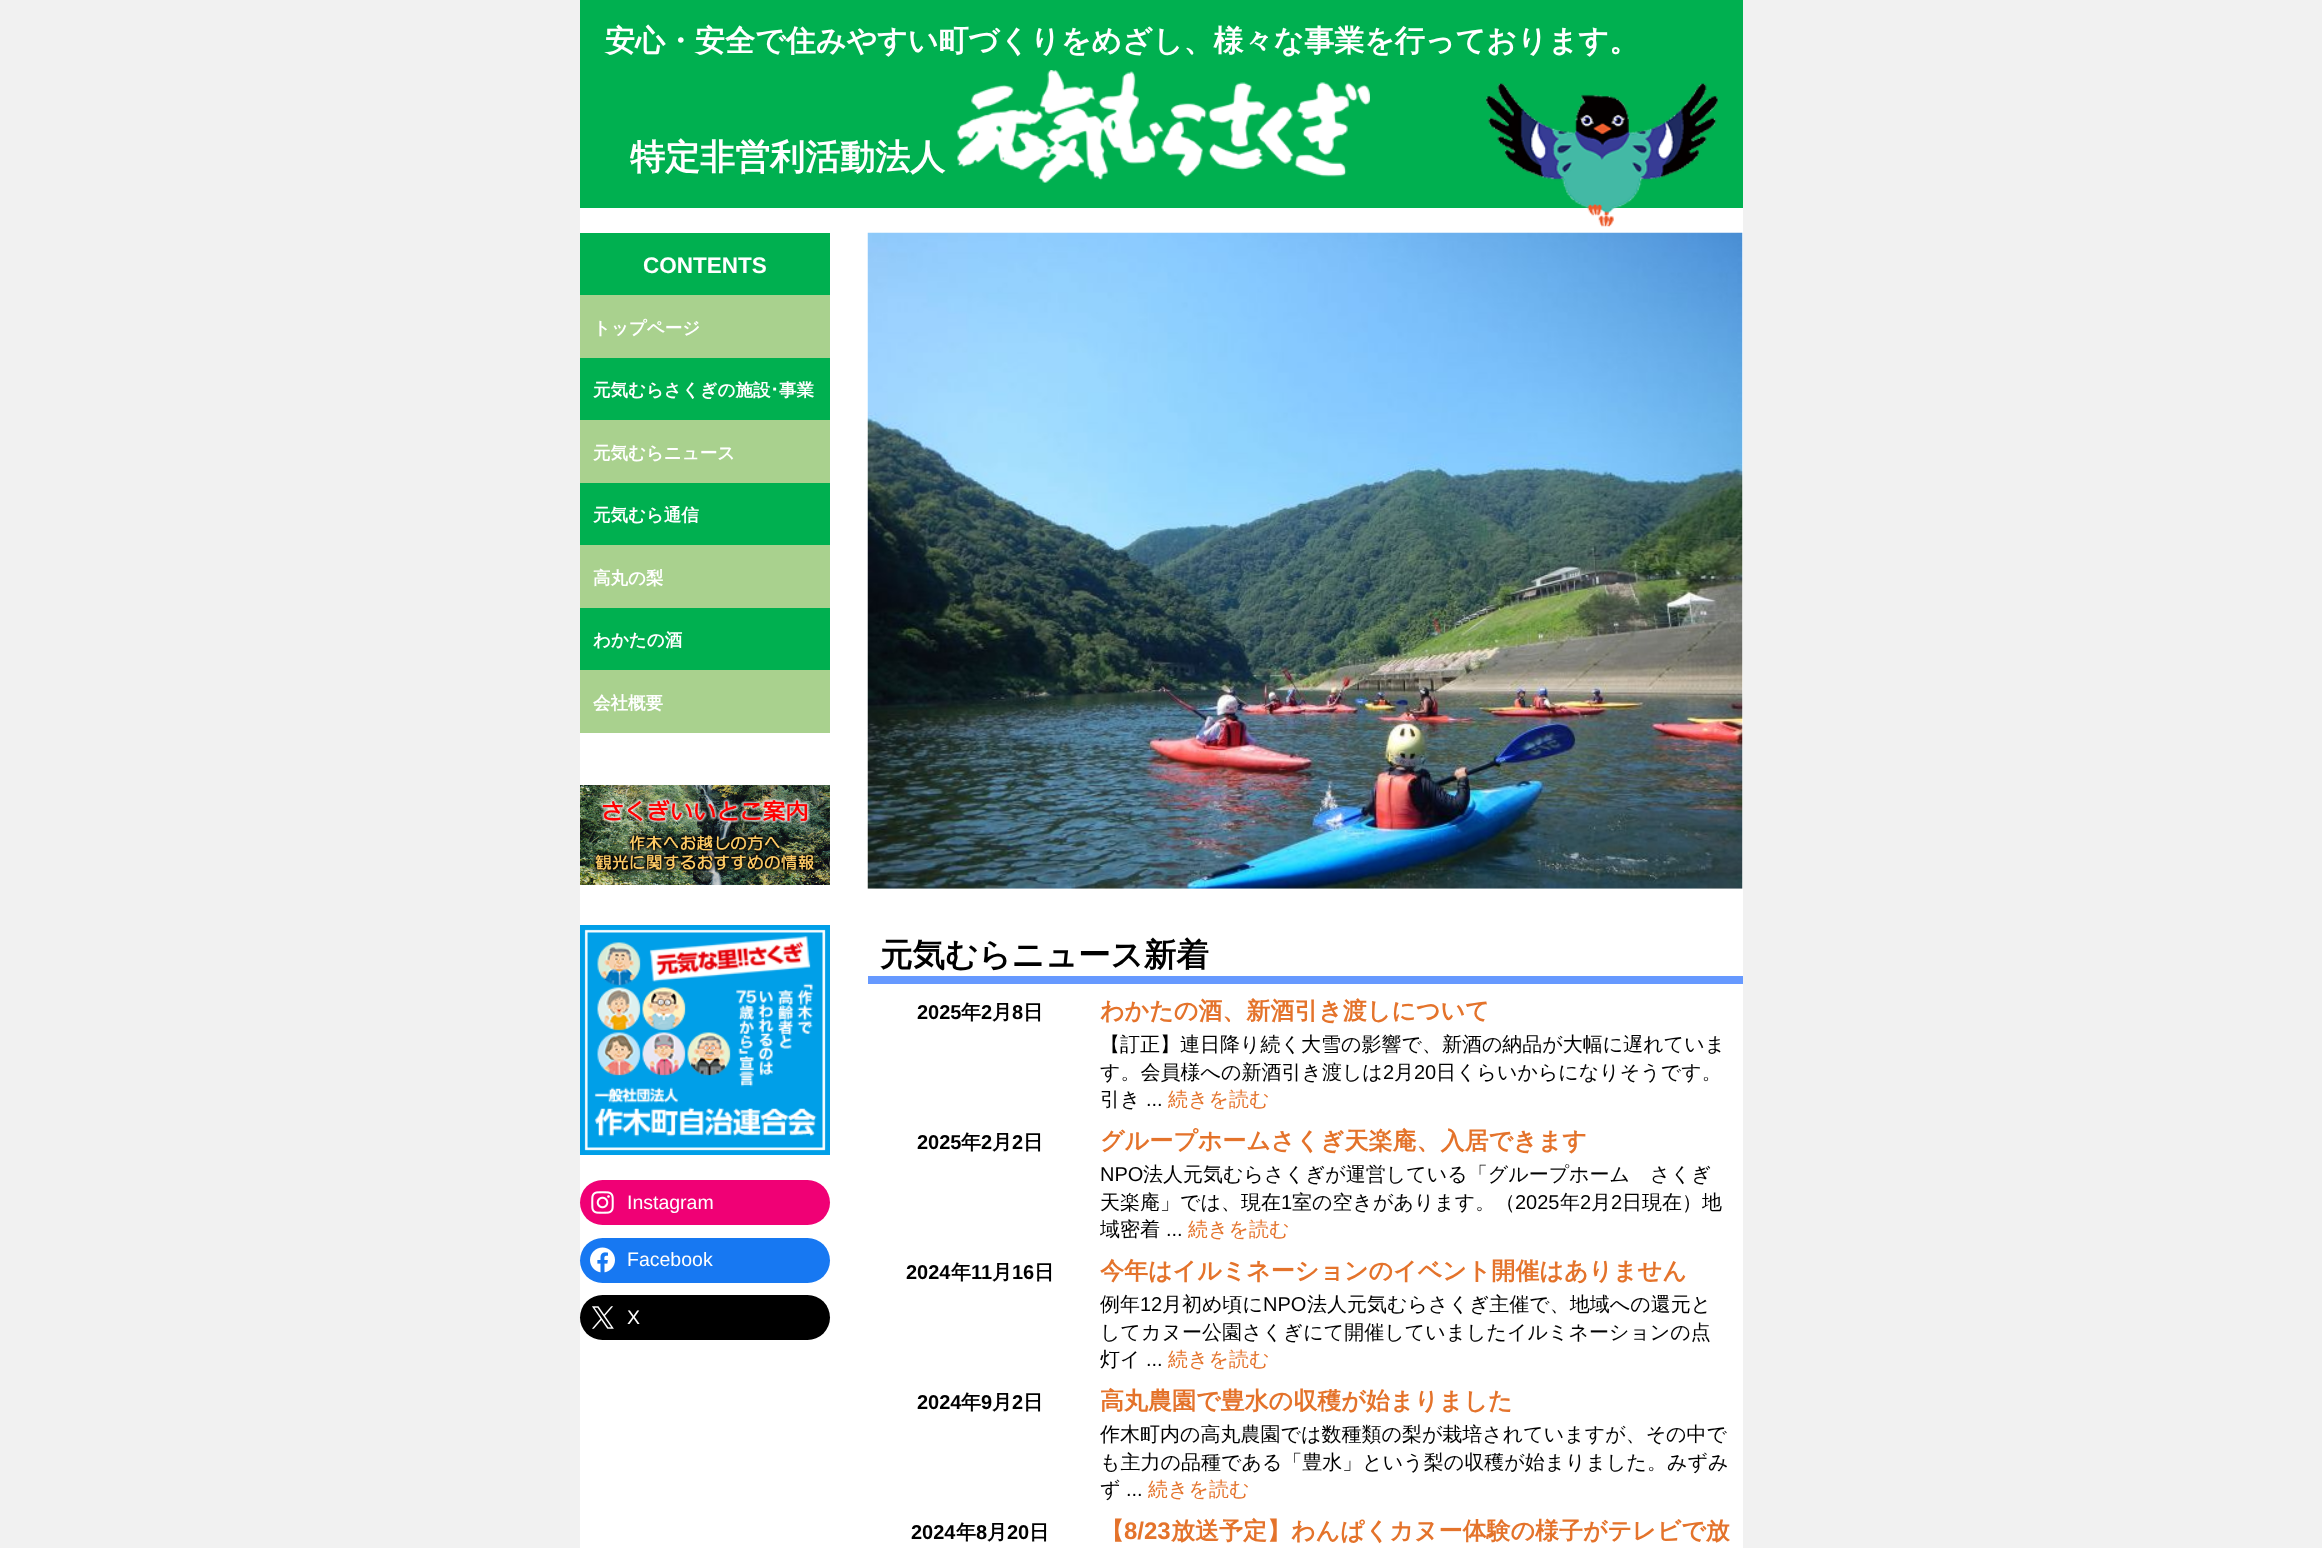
<svg xmlns="http://www.w3.org/2000/svg" width="2322" height="1548" viewBox="0 0 2322 1548">
  <rect width="100%" height="100%" fill="rgb(241,241,241)"/>
  <rect x="580" y="208" width="1163" height="1340" fill="rgb(255,255,255)"/>
  <rect x="580" y="0" width="1163" height="208" fill="rgb(0,176,80)"/>
  <text x="605" y="51" font-family="WenQuanYi Zen Hei" font-size="30" font-weight="bold" fill="rgb(255,255,255)">安心・安全で住みやすい町づくりをめざし、様々な事業を行っております。</text>
  <text x="630" y="169" font-family="WenQuanYi Zen Hei" font-size="35" font-weight="bold" fill="rgb(255,255,255)">特定非営利活動法人</text>
  <image x="957" y="70" width="413" height="113" href="pic1.png"/>
  <image x="1486" y="83" width="232" height="144" href="pic2.png"/>
  <rect x="580" y="233" width="250" height="62" fill="rgb(0,176,80)"/>
  <text x="643" y="273" font-family="Liberation Sans" font-size="22.5" font-weight="bold" fill="rgb(255,255,255)">CONTENTS</text>
  <rect x="580" y="295" width="250" height="63" fill="rgb(169,209,142)"/>
  <text x="593" y="334" font-family="WenQuanYi Zen Hei" font-size="17.5" font-weight="bold" fill="rgb(255,255,255)">トップページ</text>
  <rect x="580" y="358" width="250" height="62" fill="rgb(0,176,80)"/>
  <text x="593" y="396" font-family="WenQuanYi Zen Hei" font-size="17.5" font-weight="bold" fill="rgb(255,255,255)">元気むらさくぎの施設</text>
  <text x="770" y="396" font-family="IPAPGothic" font-size="17.5" font-weight="bold" fill="rgb(255,255,255)">･</text>
  <text x="779" y="396" font-family="WenQuanYi Zen Hei" font-size="17.5" font-weight="bold" fill="rgb(255,255,255)">事業</text>
  <rect x="580" y="420" width="250" height="63" fill="rgb(169,209,142)"/>
  <text x="593" y="459" font-family="WenQuanYi Zen Hei" font-size="17.5" font-weight="bold" fill="rgb(255,255,255)">元気むらニュース</text>
  <rect x="580" y="483" width="250" height="62" fill="rgb(0,176,80)"/>
  <text x="593" y="521" font-family="WenQuanYi Zen Hei" font-size="17.5" font-weight="bold" fill="rgb(255,255,255)">元気むら通信</text>
  <rect x="580" y="545" width="250" height="63" fill="rgb(169,209,142)"/>
  <text x="593" y="584" font-family="WenQuanYi Zen Hei" font-size="17.5" font-weight="bold" fill="rgb(255,255,255)">高丸の梨</text>
  <rect x="580" y="608" width="250" height="62" fill="rgb(0,176,80)"/>
  <text x="593" y="646" font-family="WenQuanYi Zen Hei" font-size="17.5" font-weight="bold" fill="rgb(255,255,255)">わかたの酒</text>
  <rect x="580" y="670" width="250" height="63" fill="rgb(169,209,142)"/>
  <text x="593" y="709" font-family="WenQuanYi Zen Hei" font-size="17.5" font-weight="bold" fill="rgb(255,255,255)">会社概要</text>
  <image x="580" y="785" width="250" height="100" href="pic3.png"/>
  <image x="580" y="925" width="250" height="230" href="pic4.png"/>
  <rect x="580" y="1180" width="250" height="45" rx="22.5" fill="rgb(240,0,117)"/>
  <image x="591" y="1191" width="23" height="23" href="pic5.png"/>
  <text x="627" y="1209" font-family="Liberation Sans" font-size="19.5" fill="rgb(255,255,255)">Instagram</text>
  <rect x="580" y="1238" width="250" height="45" rx="22.5" fill="rgb(23,120,242)"/>
  <image x="590" y="1247" width="25" height="26" href="pic6.png"/>
  <text x="627" y="1266" font-family="Liberation Sans" font-size="19.5" fill="rgb(255,255,255)">Facebook</text>
  <rect x="580" y="1295" width="250" height="45" rx="22.5" fill="rgb(0,0,0)"/>
  <image x="592" y="1306" width="22" height="23" href="pic7.png"/>
  <text x="627" y="1324" font-family="Liberation Sans" font-size="19.5" fill="rgb(255,255,255)">X</text>
  <image x="867" y="232" width="876" height="657" href="pic8.png"/>
  <rect x="868" y="976" width="875" height="8" fill="rgb(102,153,255)"/>
  <text x="880" y="966" font-family="WenQuanYi Zen Hei" font-size="32.5" font-weight="bold" fill="rgb(0,0,0)">元気むらニュース新着</text>
  <text x="917" y="1019" font-family="Liberation Sans" font-size="20" font-weight="bold" fill="rgb(0,0,0)">2025</text>
  <text x="961" y="1019" font-family="WenQuanYi Zen Hei" font-size="20" font-weight="bold" fill="rgb(0,0,0)">年</text>
  <text x="981" y="1019" font-family="Liberation Sans" font-size="20" font-weight="bold" fill="rgb(0,0,0)">2</text>
  <text x="992" y="1019" font-family="WenQuanYi Zen Hei" font-size="20" font-weight="bold" fill="rgb(0,0,0)">月</text>
  <text x="1012" y="1019" font-family="Liberation Sans" font-size="20" font-weight="bold" fill="rgb(0,0,0)">8</text>
  <text x="1023" y="1019" font-family="WenQuanYi Zen Hei" font-size="20" font-weight="bold" fill="rgb(0,0,0)">日</text>
  <text x="1100" y="1019" font-family="WenQuanYi Zen Hei" font-size="24" font-weight="bold" fill="rgb(228,115,43)">わかたの酒、新酒引き渡しについて</text>
  <g font-family="WenQuanYi Zen Hei" font-size="20" font-weight="500" fill="rgb(0,0,0)">
    <text>
      <tspan x="1100" y="1051">【訂正】連日降り続く大雪の影響で、新酒の納品が大幅に遅れていま</tspan>
      <tspan x="1100" y="1079">す。会員様への新酒引き渡しは</tspan>
    </text>
  </g>
  <text x="1383" y="1079" font-family="Liberation Sans" font-size="20" fill="rgb(0,0,0)">2</text>
  <text x="1394" y="1079" font-family="WenQuanYi Zen Hei" font-size="20" font-weight="500" fill="rgb(0,0,0)">月</text>
  <text x="1414" y="1079" font-family="Liberation Sans" font-size="20" fill="rgb(0,0,0)">20</text>
  <g font-family="WenQuanYi Zen Hei" font-size="20" font-weight="500" fill="rgb(0,0,0)">
    <text x="1436" y="1079">日くらいからになりそうです。</text>
    <text x="1100" y="1106">引き</text>
  </g>
  <text x="1146" y="1106" font-family="Liberation Sans" font-size="20" fill="rgb(0,0,0)">...</text>
  <text x="1168" y="1106" font-family="WenQuanYi Zen Hei" font-size="20" font-weight="500" fill="rgb(228,115,43)">続きを読む</text>
  <text x="917" y="1149" font-family="Liberation Sans" font-size="20" font-weight="bold" fill="rgb(0,0,0)">2025</text>
  <text x="961" y="1149" font-family="WenQuanYi Zen Hei" font-size="20" font-weight="bold" fill="rgb(0,0,0)">年</text>
  <text x="981" y="1149" font-family="Liberation Sans" font-size="20" font-weight="bold" fill="rgb(0,0,0)">2</text>
  <text x="992" y="1149" font-family="WenQuanYi Zen Hei" font-size="20" font-weight="bold" fill="rgb(0,0,0)">月</text>
  <text x="1012" y="1149" font-family="Liberation Sans" font-size="20" font-weight="bold" fill="rgb(0,0,0)">2</text>
  <text x="1023" y="1149" font-family="WenQuanYi Zen Hei" font-size="20" font-weight="bold" fill="rgb(0,0,0)">日</text>
  <text x="1100" y="1149" font-family="WenQuanYi Zen Hei" font-size="24" font-weight="bold" fill="rgb(228,115,43)">グループホームさくぎ天楽庵、入居できます</text>
  <text x="1100" y="1181" font-family="Liberation Sans" font-size="20" fill="rgb(0,0,0)">NPO</text>
  <g font-family="WenQuanYi Zen Hei" font-size="20" font-weight="500" fill="rgb(0,0,0)">
    <text x="1143" y="1181">法人元気むらさくぎが運営している「グループホーム　さくぎ</text>
    <text x="1100" y="1209">天楽庵」では、現在</text>
  </g>
  <text x="1281" y="1209" font-family="Liberation Sans" font-size="20" fill="rgb(0,0,0)">1</text>
  <text x="1292" y="1209" font-family="WenQuanYi Zen Hei" font-size="20" font-weight="500" fill="rgb(0,0,0)">室の空きがあります。（</text>
  <text x="1515" y="1209" font-family="Liberation Sans" font-size="20" fill="rgb(0,0,0)">2025</text>
  <text x="1560" y="1209" font-family="WenQuanYi Zen Hei" font-size="20" font-weight="500" fill="rgb(0,0,0)">年</text>
  <text x="1580" y="1209" font-family="Liberation Sans" font-size="20" fill="rgb(0,0,0)">2</text>
  <text x="1591" y="1209" font-family="WenQuanYi Zen Hei" font-size="20" font-weight="500" fill="rgb(0,0,0)">月</text>
  <text x="1611" y="1209" font-family="Liberation Sans" font-size="20" fill="rgb(0,0,0)">2</text>
  <g font-family="WenQuanYi Zen Hei" font-size="20" font-weight="500" fill="rgb(0,0,0)">
    <text x="1622" y="1209">日現在）地</text>
    <text x="1100" y="1236">域密着</text>
  </g>
  <text x="1166" y="1236" font-family="Liberation Sans" font-size="20" fill="rgb(0,0,0)">...</text>
  <text x="1188" y="1236" font-family="WenQuanYi Zen Hei" font-size="20" font-weight="500" fill="rgb(228,115,43)">続きを読む</text>
  <text x="906" y="1279" font-family="Liberation Sans" font-size="20" font-weight="bold" fill="rgb(0,0,0)">2024</text>
  <text x="951" y="1279" font-family="WenQuanYi Zen Hei" font-size="20" font-weight="bold" fill="rgb(0,0,0)">年</text>
  <text x="971" y="1279" font-family="Liberation Sans" font-size="20" font-weight="bold" fill="rgb(0,0,0)">11</text>
  <text x="992" y="1279" font-family="WenQuanYi Zen Hei" font-size="20" font-weight="bold" fill="rgb(0,0,0)">月</text>
  <text x="1012" y="1279" font-family="Liberation Sans" font-size="20" font-weight="bold" fill="rgb(0,0,0)">16</text>
  <text x="1034" y="1279" font-family="WenQuanYi Zen Hei" font-size="20" font-weight="bold" fill="rgb(0,0,0)">日</text>
  <text x="1100" y="1279" font-family="WenQuanYi Zen Hei" font-size="24" font-weight="bold" fill="rgb(228,115,43)">今年はイルミネーションのイベント開催はありません</text>
  <text x="1100" y="1311" font-family="WenQuanYi Zen Hei" font-size="20" font-weight="500" fill="rgb(0,0,0)">例年</text>
  <text x="1140" y="1311" font-family="Liberation Sans" font-size="20" fill="rgb(0,0,0)">12</text>
  <text x="1162" y="1311" font-family="WenQuanYi Zen Hei" font-size="20" font-weight="500" fill="rgb(0,0,0)">月初め頃に</text>
  <text x="1263" y="1311" font-family="Liberation Sans" font-size="20" fill="rgb(0,0,0)">NPO</text>
  <g font-family="WenQuanYi Zen Hei" font-size="20" font-weight="500" fill="rgb(0,0,0)">
    <text x="1307" y="1311">法人元気むらさくぎ主催で、地域への還元と</text>
    <text>
      <tspan x="1100" y="1339">してカヌー公園さくぎにて開催していましたイルミネーションの点</tspan>
      <tspan x="1100" y="1366">灯イ</tspan>
    </text>
  </g>
  <text x="1146" y="1366" font-family="Liberation Sans" font-size="20" fill="rgb(0,0,0)">...</text>
  <text x="1168" y="1366" font-family="WenQuanYi Zen Hei" font-size="20" font-weight="500" fill="rgb(228,115,43)">続きを読む</text>
  <text x="917" y="1409" font-family="Liberation Sans" font-size="20" font-weight="bold" fill="rgb(0,0,0)">2024</text>
  <text x="961" y="1409" font-family="WenQuanYi Zen Hei" font-size="20" font-weight="bold" fill="rgb(0,0,0)">年</text>
  <text x="981" y="1409" font-family="Liberation Sans" font-size="20" font-weight="bold" fill="rgb(0,0,0)">9</text>
  <text x="992" y="1409" font-family="WenQuanYi Zen Hei" font-size="20" font-weight="bold" fill="rgb(0,0,0)">月</text>
  <text x="1012" y="1409" font-family="Liberation Sans" font-size="20" font-weight="bold" fill="rgb(0,0,0)">2</text>
  <text x="1023" y="1409" font-family="WenQuanYi Zen Hei" font-size="20" font-weight="bold" fill="rgb(0,0,0)">日</text>
  <text x="1100" y="1409" font-family="WenQuanYi Zen Hei" font-size="24" font-weight="bold" fill="rgb(228,115,43)">高丸農園で豊水の収穫が始まりました</text>
  <g font-family="WenQuanYi Zen Hei" font-size="20" font-weight="500" fill="rgb(0,0,0)">
    <text>
      <tspan x="1100" y="1441">作木町内の高丸農園では数種類の梨が栽培されていますが、その中で</tspan>
      <tspan x="1100" y="1469">も主力の品種である「豊水」という梨の収穫が始まりました。みずみ</tspan>
      <tspan x="1100" y="1496">ず</tspan>
    </text>
  </g>
  <text x="1126" y="1496" font-family="Liberation Sans" font-size="20" fill="rgb(0,0,0)">...</text>
  <text x="1148" y="1496" font-family="WenQuanYi Zen Hei" font-size="20" font-weight="500" fill="rgb(228,115,43)">続きを読む</text>
  <text x="911" y="1539" font-family="Liberation Sans" font-size="20" font-weight="bold" fill="rgb(0,0,0)">2024</text>
  <text x="956" y="1539" font-family="WenQuanYi Zen Hei" font-size="20" font-weight="bold" fill="rgb(0,0,0)">年</text>
  <text x="976" y="1539" font-family="Liberation Sans" font-size="20" font-weight="bold" fill="rgb(0,0,0)">8</text>
  <text x="987" y="1539" font-family="WenQuanYi Zen Hei" font-size="20" font-weight="bold" fill="rgb(0,0,0)">月</text>
  <text x="1007" y="1539" font-family="Liberation Sans" font-size="20" font-weight="bold" fill="rgb(0,0,0)">20</text>
  <text x="1029" y="1539" font-family="WenQuanYi Zen Hei" font-size="20" font-weight="bold" fill="rgb(0,0,0)">日</text>
  <text x="1100" y="1539" font-family="WenQuanYi Zen Hei" font-size="24" font-weight="bold" fill="rgb(228,115,43)">【</text>
  <text x="1124" y="1539" font-family="Liberation Sans" font-size="24" font-weight="bold" fill="rgb(228,115,43)">8/23</text>
  <text x="1171" y="1539" font-family="WenQuanYi Zen Hei" font-size="24" font-weight="bold" fill="rgb(228,115,43)">放送予定】わんぱくカヌー体験の様子がテレビで放</text>
</svg>
